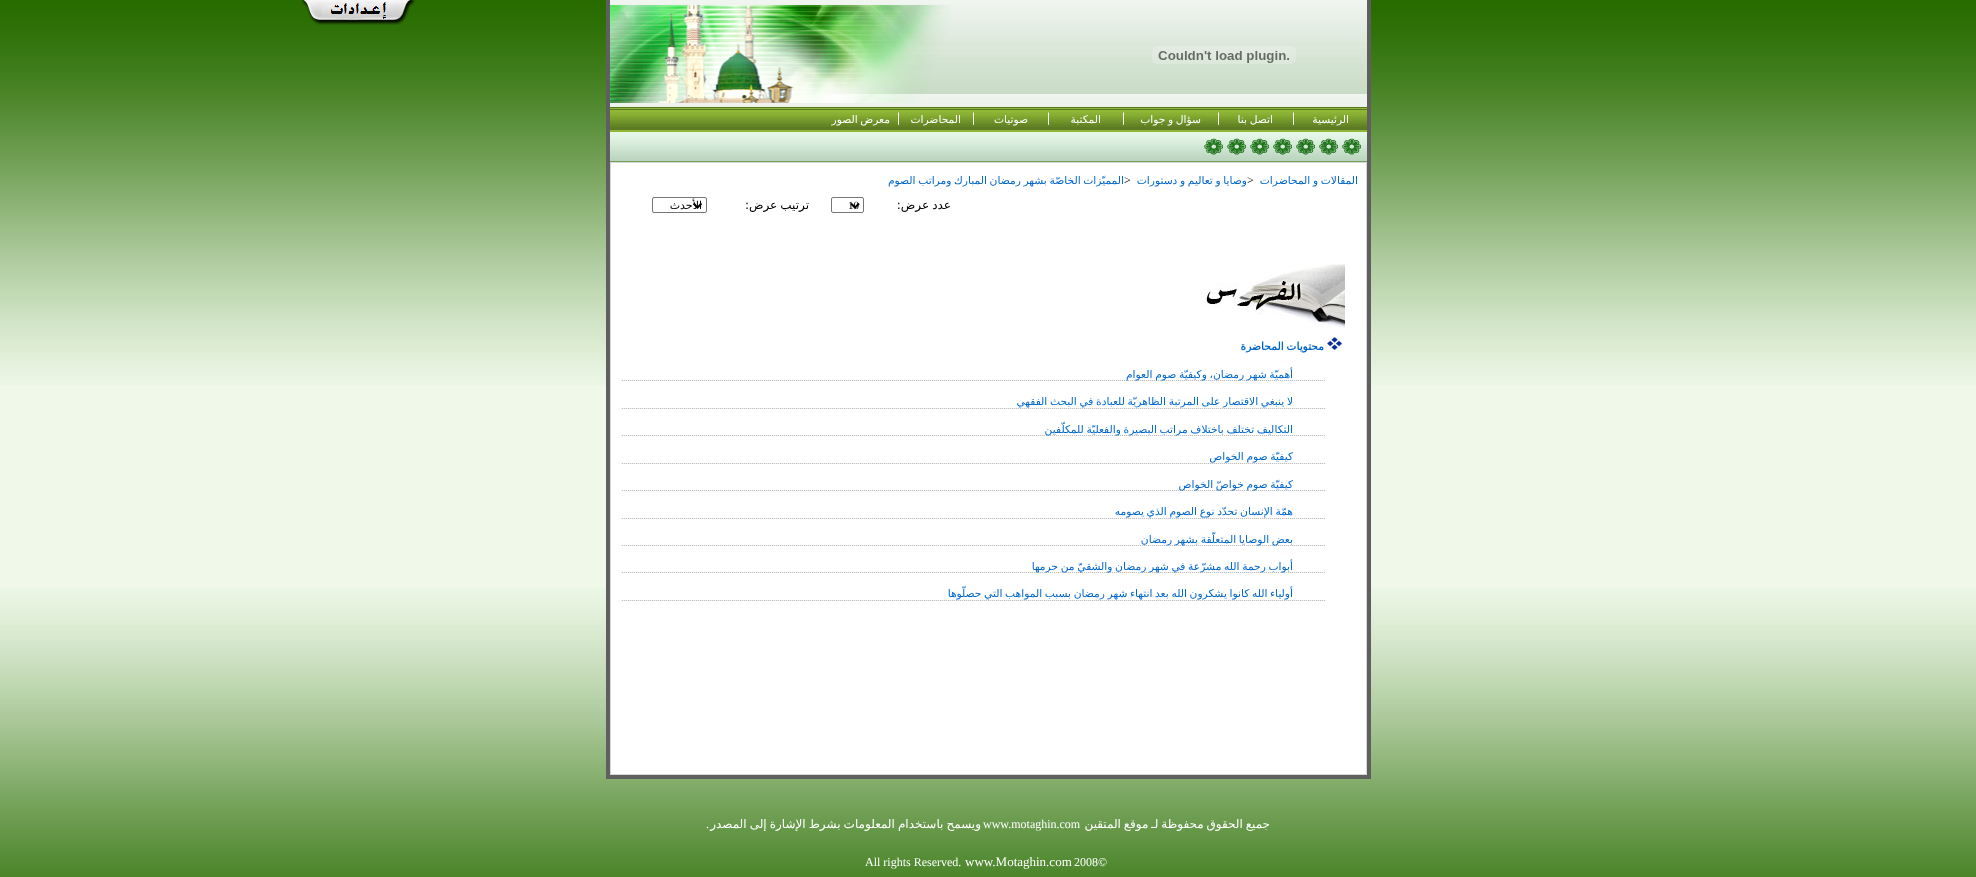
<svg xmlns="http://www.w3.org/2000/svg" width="1976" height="877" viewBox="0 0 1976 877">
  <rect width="100%" height="100%" fill="rgb(240,249,233)"/>
  <image x="0" y="588" width="1976" height="289" href="pic1.png"/>
  <image x="0" y="0" width="1976" height="385" href="pic2.png"/>
  <image x="610" y="0" width="757" height="107" href="pic3.png"/>
  <rect x="1367" y="0" width="4" height="779" fill="rgb(95,95,95)"/>
  <rect x="606" y="0" width="4" height="779" fill="rgb(95,95,95)"/>
  <image x="1152" y="46" width="144" height="18" href="pic4.png"/>
  <image x="610" y="5" width="340" height="98" href="pic5.png"/>
  <image x="301" y="0" width="115" height="25" href="pic6.png"/>
  <image x="610" y="107" width="757" height="25" href="pic7.png"/>
  <image x="610" y="109" width="757" height="21" href="pic8.png"/>
  <text x="1349" y="123" font-family="DejaVu Sans" font-size="10.7" direction="rtl" fill="rgb(255,255,255)">الرئیسیة</text>
  <image x="1293" y="112" width="1" height="13" href="pic9.png"/>
  <text x="1273" y="123" word-spacing="-0.75" font-family="DejaVu Sans" font-size="10.7" direction="rtl" fill="rgb(255,255,255)">اتصل بنا</text>
  <image x="1218" y="112" width="1" height="13" href="pic9.png"/>
  <text x="1201" y="123" word-spacing="-0.75" font-family="DejaVu Sans" font-size="10.7" direction="rtl" fill="rgb(255,255,255)">سؤال و جواب</text>
  <image x="1123" y="112" width="1" height="13" href="pic9.png"/>
  <text x="1101" y="123" font-family="DejaVu Sans" font-size="10.7" direction="rtl" fill="rgb(255,255,255)">المكتبة</text>
  <image x="1048" y="112" width="1" height="13" href="pic9.png"/>
  <text x="1028" y="123" font-family="DejaVu Sans" font-size="10.7" direction="rtl" fill="rgb(255,255,255)">صوتيات</text>
  <image x="973" y="112" width="1" height="13" href="pic9.png"/>
  <text x="961" y="123" font-family="DejaVu Sans" font-size="10.7" direction="rtl" fill="rgb(255,255,255)">المحاضرات</text>
  <image x="898" y="112" width="1" height="13" href="pic9.png"/>
  <text x="890" y="123" word-spacing="-0.75" font-family="DejaVu Sans" font-size="10.7" direction="rtl" fill="rgb(255,255,255)">معرض الصور</text>
  <image x="610" y="132" width="757" height="29" href="pic10.png"/>
  <image x="1342" y="138" width="19" height="17" href="pic11.png"/>
  <image x="1319" y="138" width="19" height="17" href="pic11.png"/>
  <image x="1296" y="138" width="19" height="17" href="pic11.png"/>
  <image x="1273" y="138" width="19" height="17" href="pic11.png"/>
  <image x="1250" y="138" width="19" height="17" href="pic11.png"/>
  <image x="1227" y="138" width="19" height="17" href="pic11.png"/>
  <image x="1204" y="138" width="19" height="17" href="pic11.png"/>
  <rect x="610" y="775" width="757" height="4" fill="rgb(95,95,95)"/>
  <rect x="610.5" y="162.5" width="756" height="612" fill="rgb(255,255,255)" stroke="rgb(215,215,215)"/>
  <text x="1358" y="184" word-spacing="-0.75" font-family="DejaVu Sans" font-size="10.7" direction="rtl" fill="rgb(0,102,204)">المقالات و المحاضرات</text>
  <text x="1247" y="184" font-family="Liberation Serif" font-size="12" fill="rgb(0,0,0)">&gt;</text>
  <text x="1247" y="184" word-spacing="-0.75" font-family="DejaVu Sans" font-size="10.7" direction="rtl" fill="rgb(0,102,204)">وصايا و تعاليم و دستورات</text>
  <text x="1124" y="184" font-family="Liberation Serif" font-size="12" fill="rgb(0,0,0)">&gt;</text>
  <text x="1124" y="184" word-spacing="-0.75" font-family="DejaVu Sans" font-size="10.7" direction="rtl" fill="rgb(0,102,204)">المميّزات الخاصّة بشهر رمضان المبارك ومراتب الصوم</text>
  <text x="951" y="209" word-spacing="-0.75" font-family="DejaVu Sans" font-size="12" direction="rtl" fill="rgb(0,0,0)">عدد عرض:</text>
  <rect x="831.5" y="197.5" width="32" height="15" rx="1.5" fill="none" stroke="rgb(118,118,118)"/>
  <path d="M851 203.5L855 207.5L859 203.5" fill="none" stroke="rgb(0,0,0)" stroke-width="2"/>
  <text x="848" y="209" font-family="Liberation Serif" font-size="11" fill="rgb(0,0,0)">10</text>
  <text x="809" y="209" word-spacing="-0.75" font-family="DejaVu Sans" font-size="12" direction="rtl" fill="rgb(0,0,0)">ترتیب عرض:</text>
  <rect x="652.5" y="197.5" width="54" height="15" rx="1.5" fill="none" stroke="rgb(118,118,118)"/>
  <path d="M693.5 203.5L697.5 207.5L701.5 203.5" fill="none" stroke="rgb(0,0,0)" stroke-width="2"/>
  <text x="702" y="209" font-family="DejaVu Sans" font-size="11" direction="rtl" fill="rgb(0,0,0)">الأحدث</text>
  <image x="1201" y="264" width="144" height="64" href="pic12.png"/>
  <image x="1327" y="337" width="15" height="13" href="pic13.png"/>
  <text x="1324" y="350" word-spacing="-0.75" font-family="DejaVu Sans" font-size="10.7" font-weight="bold" direction="rtl" fill="rgb(0,102,204)">محتويات المحاضرة</text>
  <image x="621" y="380" width="705" height="1" href="pic14.png"/>
  <text x="1293" y="378" word-spacing="-0.75" font-family="DejaVu Sans" font-size="10.7" direction="rtl" fill="rgb(0,102,204)">أهميّة شهر رمضان، وكيفيّة صوم العوام</text>
  <image x="621" y="408" width="705" height="1" href="pic14.png"/>
  <text x="1293" y="405" word-spacing="-0.75" font-family="DejaVu Sans" font-size="10.7" direction="rtl" fill="rgb(0,102,204)">لا ينبغي الاقتصار على المرتبة الظاهريّة للعبادة في البحث الفقهي</text>
  <image x="621" y="435" width="705" height="1" href="pic14.png"/>
  <text x="1293" y="433" word-spacing="-0.75" font-family="DejaVu Sans" font-size="10.7" direction="rtl" fill="rgb(0,102,204)">التكاليف تختلف باختلاف مراتب البصيرة والفعليّة للمكلّفين</text>
  <image x="621" y="463" width="705" height="1" href="pic14.png"/>
  <text x="1293" y="460" word-spacing="-0.75" font-family="DejaVu Sans" font-size="10.7" direction="rtl" fill="rgb(0,102,204)">كيفيّة صوم الخواص</text>
  <image x="621" y="490" width="705" height="1" href="pic14.png"/>
  <text x="1293" y="488" word-spacing="-0.75" font-family="DejaVu Sans" font-size="10.7" direction="rtl" fill="rgb(0,102,204)">كيفيّة صوم خواصّ الخواص</text>
  <image x="621" y="518" width="705" height="1" href="pic14.png"/>
  <text x="1293" y="515" word-spacing="-0.75" font-family="DejaVu Sans" font-size="10.7" direction="rtl" fill="rgb(0,102,204)">همّة الإنسان تحدّد نوع الصوم الذي يصومه</text>
  <image x="621" y="545" width="705" height="1" href="pic14.png"/>
  <text x="1293" y="543" word-spacing="-0.75" font-family="DejaVu Sans" font-size="10.7" direction="rtl" fill="rgb(0,102,204)">بعض الوصايا المتعلّقة بشهر رمضان</text>
  <image x="621" y="572" width="705" height="1" href="pic14.png"/>
  <text x="1293" y="570" word-spacing="-0.75" font-family="DejaVu Sans" font-size="10.7" direction="rtl" fill="rgb(0,102,204)">أبواب رحمة الله مشرّعة في شهر رمضان والشقيّ من حرمها</text>
  <image x="621" y="600" width="705" height="1" href="pic14.png"/>
  <text x="1293" y="597" word-spacing="-0.75" font-family="DejaVu Sans" font-size="10.7" direction="rtl" fill="rgb(0,102,204)">أولياء الله كانوا يشكرون الله بعد انتهاء شهر رمضان بسبب المواهب التي حصلّوها</text>
  <text x="1270" y="828" word-spacing="-1" font-family="DejaVu Sans" font-size="12" direction="rtl" fill="rgb(255,255,255)">جميع الحقوق محفوظة لـ موقع المتقين</text>
  <text x="709" y="828" font-family="Liberation Serif" font-size="12" direction="rtl" fill="rgb(255,255,255)">.</text>
  <text x="981" y="828" word-spacing="-0.75" font-family="DejaVu Sans" font-size="12" direction="rtl" fill="rgb(255,255,255)">ويسمح باستخدام المعلومات بشرط الإشارة إلى المصدر</text>
  <g font-family="Liberation Serif" font-size="12" fill="rgb(255,255,255)">
    <text x="983" y="828">www.motaghin.com</text>
    <text x="1074" y="866">2008©</text>
  </g>
  <text x="965" y="866" font-family="Liberation Serif" font-size="13" fill="rgb(255,255,255)">www.Motaghin.com</text>
  <text x="865" y="866" font-family="Liberation Serif" font-size="12" fill="rgb(255,255,255)">All rights Reserved.</text>
</svg>
